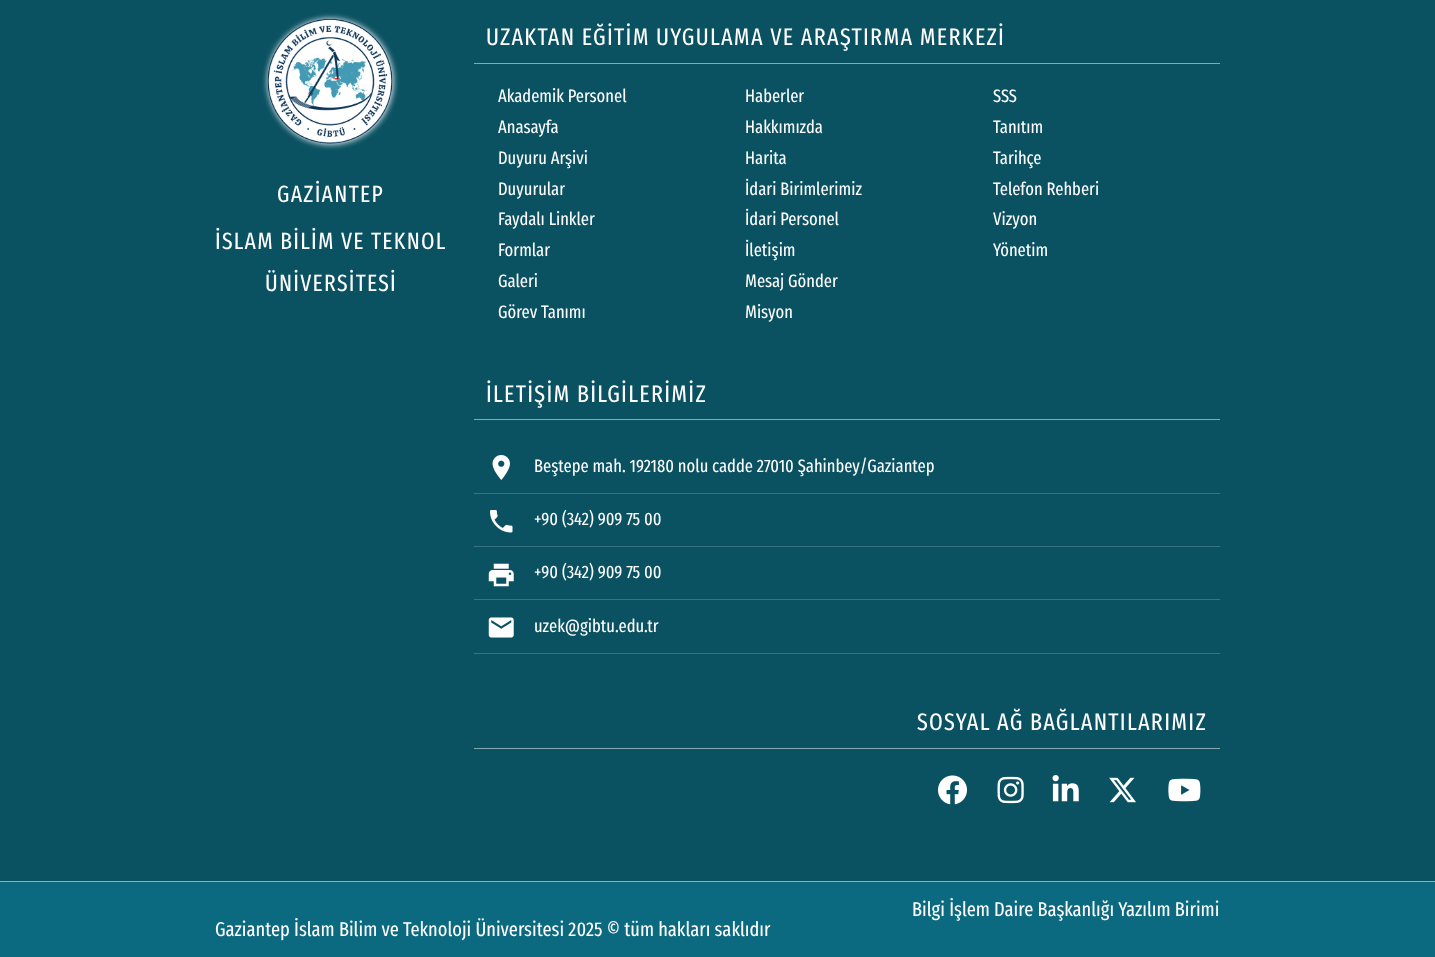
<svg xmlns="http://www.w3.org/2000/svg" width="1435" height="957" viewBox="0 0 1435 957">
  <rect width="100%" height="100%" fill="rgb(10,81,98)"/>
  <rect x="268" y="19" width="125" height="125" rx="62.5" fill="rgb(255,255,255)" filter="blur(3px)"/>
  <image x="267" y="18" width="126" height="126" href="pic1.png"/>
  <g font-family="Fira Sans Extra Condensed" font-size="23.5" letter-spacing="1.25" fill="rgb(255,255,255)">
    <text x="277" y="202">GAZİANTEP</text>
    <text x="215" y="249">İSLAM BİLİM VE TEKNOL</text>
    <text x="265" y="291">ÜNİVERSİTESİ</text>
  </g>
  <rect x="474" y="63" width="746" height="1" fill="rgb(133,168,177)"/>
  <text x="486" y="45" font-family="Fira Sans Extra Condensed" font-size="24" letter-spacing="1.25" fill="rgb(255,255,255)">UZAKTAN EĞİTİM UYGULAMA VE ARAŞTIRMA MERKEZİ</text>
  <g font-family="Fira Sans Extra Condensed" font-size="18" fill="rgb(255,255,255)">
    <text x="498" y="102">Akademik Personel</text>
    <text x="745" y="102">Haberler</text>
    <text x="993" y="102">SSS</text>
    <text x="498" y="133">Anasayfa</text>
    <text x="745" y="133">Hakkımızda</text>
    <text x="993" y="133">Tanıtım</text>
    <text x="498" y="164">Duyuru Arşivi</text>
    <text x="745" y="164">Harita</text>
    <text x="993" y="164">Tarihçe</text>
    <text x="498" y="195">Duyurular</text>
    <text x="745" y="195">İdari Birimlerimiz</text>
    <text x="993" y="195">Telefon Rehberi</text>
    <text x="498" y="225">Faydalı Linkler</text>
    <text x="745" y="225">İdari Personel</text>
    <text x="993" y="225">Vizyon</text>
    <text x="498" y="256">Formlar</text>
    <text x="745" y="256">İletişim</text>
    <text x="993" y="256">Yönetim</text>
    <text x="498" y="287">Galeri</text>
    <text x="745" y="287">Mesaj Gönder</text>
    <text x="498" y="318">Görev Tanımı</text>
    <text x="745" y="318">Misyon</text>
  </g>
  <rect x="474" y="419" width="746" height="1" fill="rgb(133,168,177)"/>
  <text x="486" y="402" font-family="Fira Sans Extra Condensed" font-size="24" letter-spacing="1.25" fill="rgb(255,255,255)">İLETİŞİM BİLGİLERİMİZ</text>
  <rect x="474" y="493" width="746" height="1" fill="rgb(59,116,129)"/>
  <image x="492" y="455" width="18" height="25" href="pic2.png"/>
  <text x="534" y="472" font-family="Fira Sans Extra Condensed" font-size="18" fill="rgb(255,255,255)">Beştepe mah. 192180 nolu cadde 27010 Şahinbey/Gaziantep</text>
  <rect x="474" y="546" width="746" height="1" fill="rgb(59,116,129)"/>
  <image x="490" y="510" width="23" height="23" href="pic3.png"/>
  <text x="534" y="525" font-family="Fira Sans Extra Condensed" font-size="18" fill="rgb(255,255,255)">+90 (342) 909 75 00</text>
  <rect x="474" y="599" width="746" height="1" fill="rgb(59,116,129)"/>
  <image x="488" y="563" width="26" height="24" href="pic4.png"/>
  <text x="534" y="578" font-family="Fira Sans Extra Condensed" font-size="18" fill="rgb(255,255,255)">+90 (342) 909 75 00</text>
  <rect x="474" y="653" width="746" height="1" fill="rgb(59,116,129)"/>
  <image x="488" y="617" width="26" height="21" href="pic5.png"/>
  <text x="534" y="632" font-family="Fira Sans Extra Condensed" font-size="18" fill="rgb(255,255,255)">uzek@gibtu.edu.tr</text>
  <rect x="474" y="748" width="746" height="1" fill="rgb(133,168,177)"/>
  <text x="917" y="730" font-family="Fira Sans Extra Condensed" font-size="24" letter-spacing="1.25" fill="rgb(255,255,255)">SOSYAL AĞ BAĞLANTILARIMIZ</text>
  <image x="938" y="775" width="29" height="30" href="pic6.png"/>
  <image x="997" y="776" width="27" height="28" href="pic7.png"/>
  <image x="1052" y="775" width="27" height="27" href="pic8.png"/>
  <image x="1109" y="777" width="27" height="26" href="pic9.png"/>
  <image x="1168" y="778" width="33" height="24" href="pic10.png"/>
  <rect x="0" y="882" width="1435" height="75" fill="rgb(12,106,128)"/>
  <rect x="0" y="881" width="1435" height="1" fill="rgb(134,181,192)"/>
  <g font-family="Fira Sans Extra Condensed" font-size="20" fill="rgb(255,255,255)">
    <text x="912" y="916">Bilgi İşlem Daire Başkanlığı Yazılım Birimi</text>
    <text x="215" y="936">Gaziantep İslam Bilim ve Teknoloji Üniversitesi 2025 © tüm hakları saklıdır</text>
  </g>
</svg>
